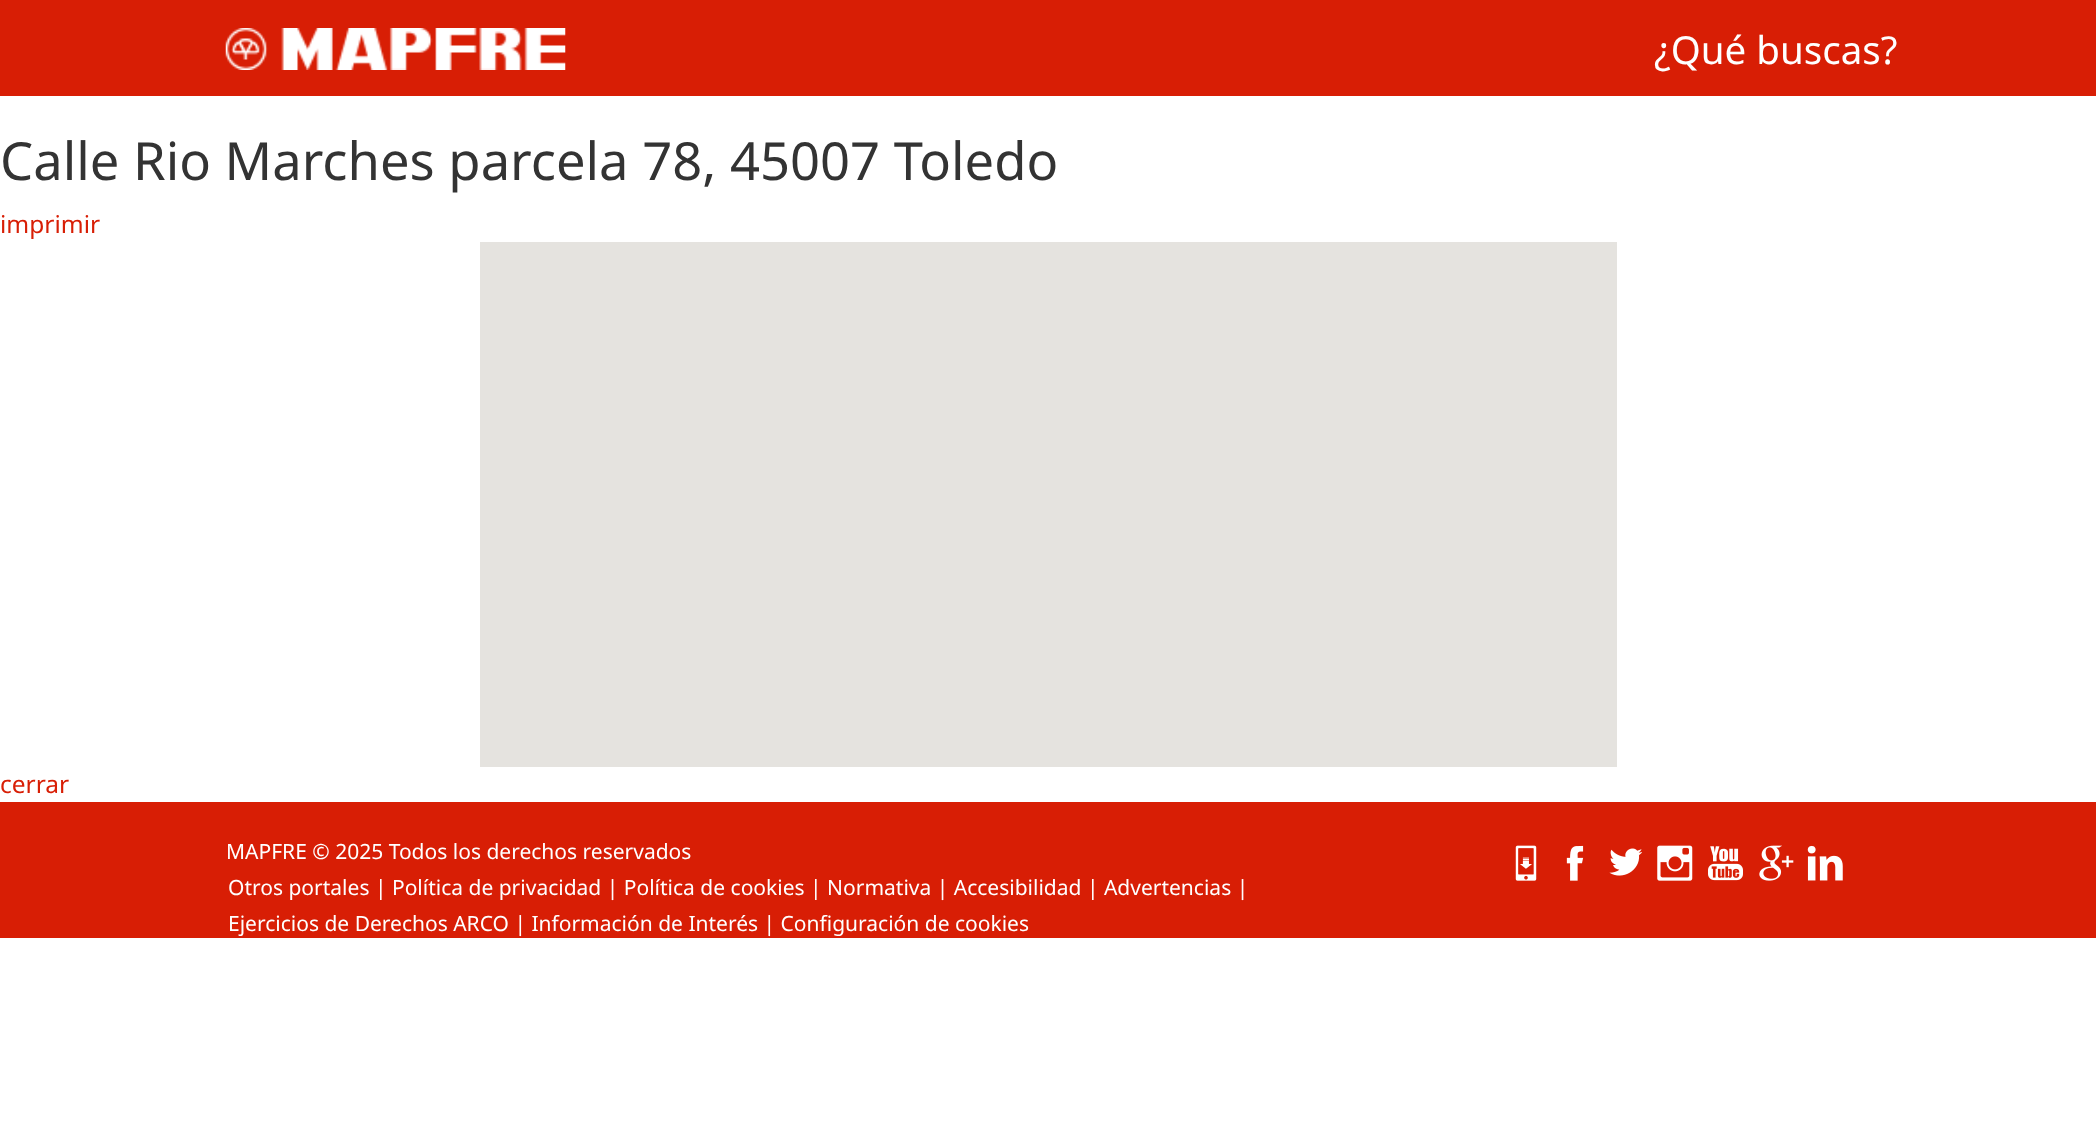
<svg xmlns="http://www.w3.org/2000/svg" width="2096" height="1125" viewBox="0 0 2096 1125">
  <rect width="100%" height="100%" fill="rgb(255,255,255)"/>
  <rect x="0" y="0" width="2096" height="96" fill="rgb(216,30,5)"/>
  <image x="225" y="28" width="341" height="42" href="pic1.png"/>
  <text x="1654" y="64" font-family="Noto Sans" font-size="38.5" fill="rgb(255,255,255)">¿Qué buscas?</text>
  <text x="0" y="180" font-family="Noto Sans" font-size="52.5" fill="rgb(51,51,51)">Calle Rio Marches parcela 78, 45007 Toledo</text>
  <text x="0" y="233" font-family="Noto Sans" font-size="24.5" fill="rgb(216,30,5)">imprimir</text>
  <rect x="480" y="242" width="1137" height="525" fill="rgb(229,227,223)"/>
  <text x="0" y="793" font-family="Noto Sans" font-size="24.5" fill="rgb(216,30,5)">cerrar</text>
  <rect x="0" y="802" width="2096" height="136" fill="rgb(216,30,5)"/>
  <g font-family="Noto Sans" font-size="21" fill="rgb(255,255,255)">
    <text x="226" y="859">MAPFRE © 2025 Todos los derechos reservados</text>
    <text>
      <tspan x="228" y="895">Otros portales | Política de privacidad | Política de cookies | Normativa | Accesibilidad | Advertencias |</tspan>
      <tspan x="228" y="931">Ejercicios de Derechos ARCO | Información de Interés | Configuración de cookies</tspan>
    </text>
  </g>
  <image x="1515" y="845" width="22" height="36" href="pic2.png"/>
  <image x="1566" y="845" width="18" height="36" href="pic3.png"/>
  <image x="1609" y="848" width="33" height="28" href="pic4.png"/>
  <image x="1657" y="845" width="36" height="36" href="pic5.png"/>
  <image x="1708" y="846" width="35" height="35" href="pic6.png"/>
  <image x="1759" y="845" width="35" height="36" href="pic7.png"/>
  <image x="1807" y="845" width="36" height="36" href="pic8.png"/>
</svg>
